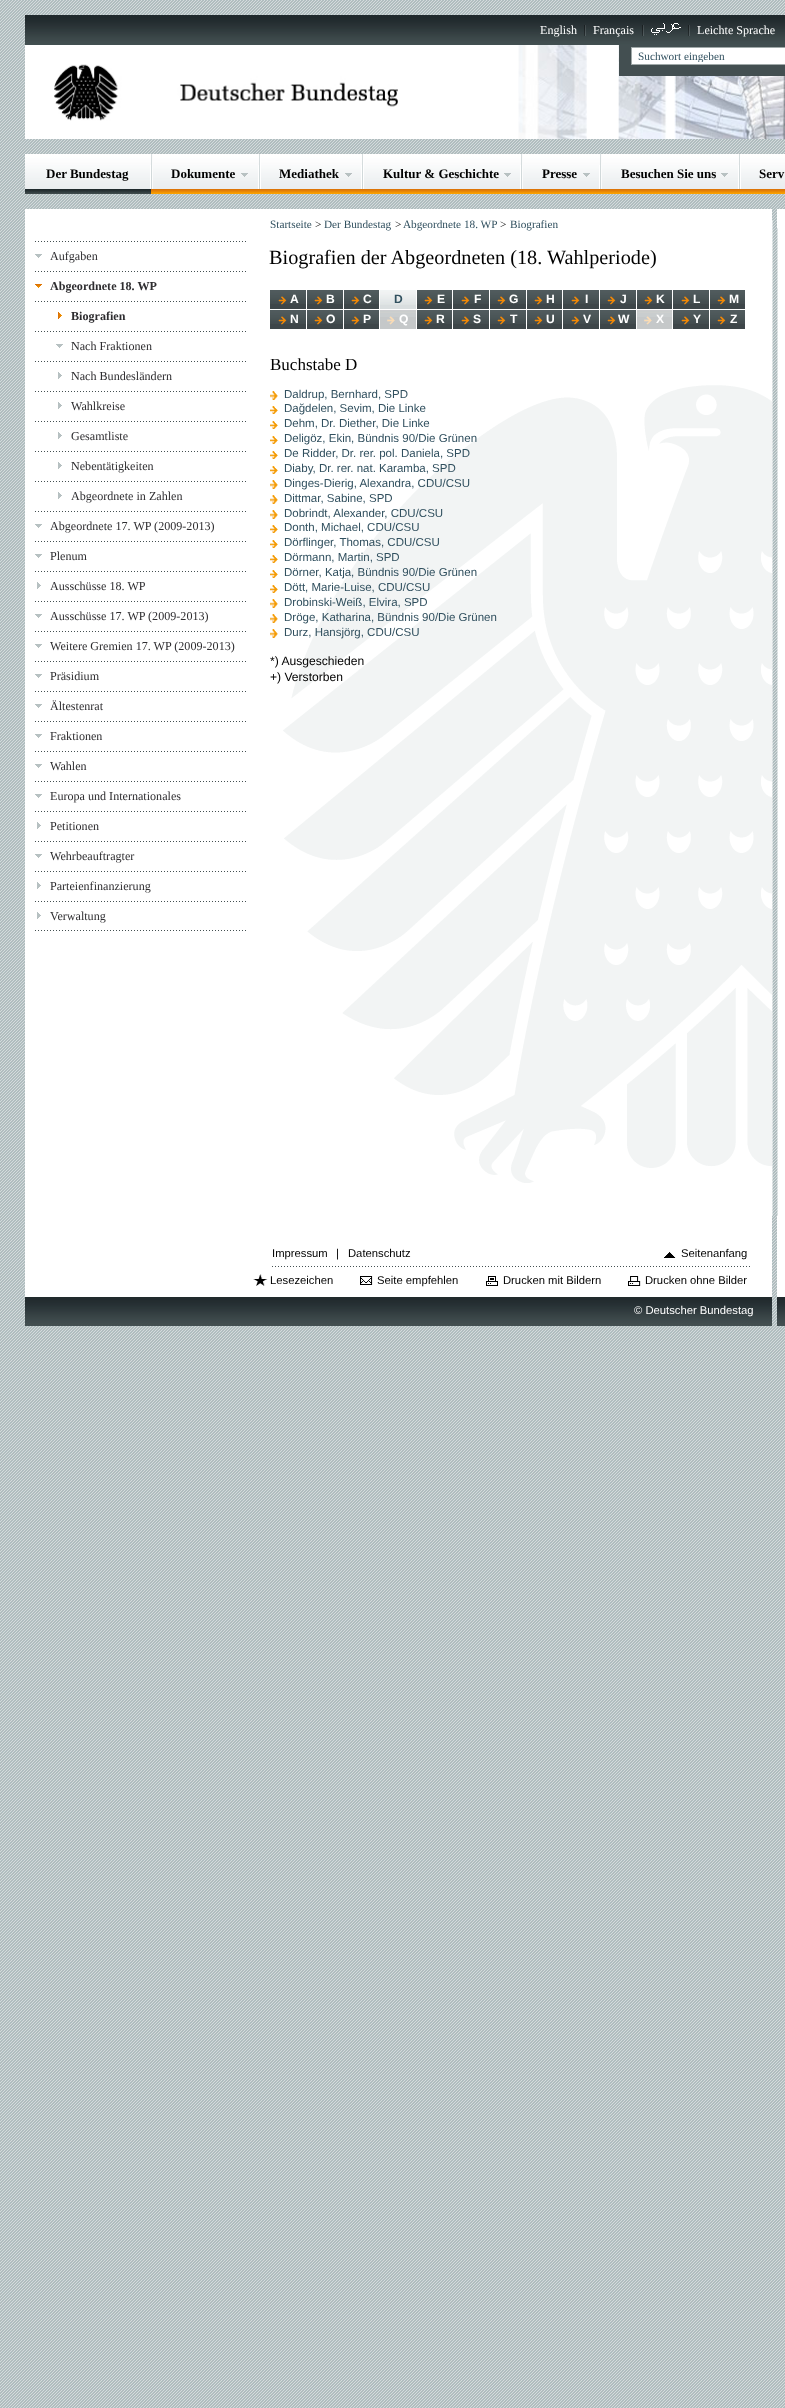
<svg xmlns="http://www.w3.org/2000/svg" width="785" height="2408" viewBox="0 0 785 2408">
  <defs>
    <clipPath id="clip1"><rect x="638" y="50" width="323" height="12"/></clipPath>
  </defs>
  <rect width="100%" height="100%" fill="rgb(255,255,255)"/>
  <image x="0" y="0" width="785" height="2408" href="pic1.png"/>
  <image x="25" y="15" width="760" height="30" href="pic2.png"/>
  <text x="540" y="34" font-family="Liberation Serif" font-size="12.1" fill="rgb(255,255,255)">English</text>
  <image x="584" y="25" width="2" height="11" href="pic3.png"/>
  <text x="593" y="34" font-family="Liberation Serif" font-size="12.1" fill="rgb(255,255,255)">Français</text>
  <image x="642" y="25" width="2" height="11" href="pic3.png"/>
  <image x="651" y="23" width="30" height="12" href="pic4.png"/>
  <image x="688" y="25" width="2" height="11" href="pic3.png"/>
  <text x="697" y="34" font-family="Liberation Serif" font-size="12.1" fill="rgb(255,255,255)">Leichte Sprache</text>
  <rect x="25" y="45" width="493" height="94" fill="rgb(255,255,255)"/>
  <image x="518" y="45" width="267" height="94" href="pic5.png"/>
  <rect x="619" y="45" width="166" height="31" fill="rgb(67,79,81)"/>
  <rect x="631.5" y="47.5" width="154" height="17" fill="rgb(255,255,255)" stroke="rgb(160,169,169)"/>
  <g clip-path="url(#clip1)">
    <text x="638" y="60" font-family="Liberation Serif" font-size="11.25" fill="rgb(49,80,95)">Suchwort eingeben</text>
  </g>
  <image x="54" y="64" width="344" height="57" href="pic6.png"/>
  <image x="25" y="154" width="760" height="40" href="pic7.png"/>
  <image x="25" y="189" width="126" height="5" href="pic8.png"/>
  <rect x="150" y="165" width="1" height="24" fill="rgb(255,255,255)"/>
  <text x="46" y="178" font-family="Liberation Serif" font-size="13" font-weight="bold" fill="rgb(0,0,0)">Der Bundestag</text>
  <image x="151" y="154" width="2" height="35" href="pic9.png"/>
  <rect x="258" y="165" width="1" height="24" fill="rgb(255,255,255)"/>
  <image x="241" y="173" width="7" height="4" href="pic10.png"/>
  <text x="171" y="178" font-family="Liberation Serif" font-size="13" font-weight="bold" fill="rgb(0,0,0)">Dokumente</text>
  <image x="259" y="154" width="2" height="35" href="pic11.png"/>
  <rect x="361" y="165" width="1" height="24" fill="rgb(255,255,255)"/>
  <image x="345" y="173" width="7" height="4" href="pic10.png"/>
  <text x="279" y="178" font-family="Liberation Serif" font-size="13" font-weight="bold" fill="rgb(0,0,0)">Mediathek</text>
  <image x="362" y="154" width="2" height="35" href="pic11.png"/>
  <rect x="520" y="165" width="1" height="24" fill="rgb(255,255,255)"/>
  <image x="504" y="173" width="7" height="4" href="pic10.png"/>
  <text x="383" y="178" font-family="Liberation Serif" font-size="13" font-weight="bold" fill="rgb(0,0,0)">Kultur &amp; Geschichte</text>
  <image x="521" y="154" width="2" height="35" href="pic9.png"/>
  <rect x="599" y="165" width="1" height="24" fill="rgb(255,255,255)"/>
  <image x="583" y="173" width="7" height="4" href="pic10.png"/>
  <text x="542" y="178" font-family="Liberation Serif" font-size="13" font-weight="bold" fill="rgb(0,0,0)">Presse</text>
  <image x="600" y="154" width="2" height="35" href="pic9.png"/>
  <rect x="738" y="165" width="1" height="24" fill="rgb(255,255,255)"/>
  <image x="721" y="173" width="7" height="4" href="pic10.png"/>
  <text x="621" y="178" font-family="Liberation Serif" font-size="13" font-weight="bold" fill="rgb(0,0,0)">Besuchen Sie uns</text>
  <image x="739" y="154" width="2" height="35" href="pic11.png"/>
  <text x="759" y="178" font-family="Liberation Serif" font-size="13" font-weight="bold" fill="rgb(0,0,0)">Serv</text>
  <rect x="25" y="209" width="747" height="19" fill="rgb(255,255,255)"/>
  <rect x="777" y="209" width="8" height="19" fill="rgb(255,255,255)"/>
  <rect x="25" y="228" width="244" height="988" fill="rgb(255,255,255)"/>
  <image x="269" y="220" width="516" height="996" href="pic12.png"/>
  <image x="35" y="930" width="211" height="1" href="pic13.png"/>
  <image x="35" y="241" width="211" height="1" href="pic13.png"/>
  <image x="35" y="254" width="7" height="4" href="pic14.png"/>
  <text x="50" y="260" font-family="Liberation Serif" font-size="12.1" fill="rgb(46,45,48)">Aufgaben</text>
  <image x="35" y="271" width="211" height="1" href="pic13.png"/>
  <image x="35" y="284" width="7" height="4" href="pic15.png"/>
  <text x="50" y="290" font-family="Liberation Serif" font-size="12.1" font-weight="bold" fill="rgb(46,45,48)">Abgeordnete 18. WP</text>
  <image x="35" y="301" width="211" height="1" href="pic13.png"/>
  <image x="58" y="312" width="4" height="7" href="pic16.png"/>
  <text x="71" y="320" font-family="Liberation Serif" font-size="12.1" font-weight="bold" fill="rgb(46,45,48)">Biografien</text>
  <image x="35" y="331" width="211" height="1" href="pic13.png"/>
  <image x="56" y="344" width="7" height="4" href="pic14.png"/>
  <text x="71" y="350" font-family="Liberation Serif" font-size="12.1" fill="rgb(46,45,48)">Nach Fraktionen</text>
  <image x="35" y="361" width="211" height="1" href="pic13.png"/>
  <image x="58" y="372" width="4" height="7" href="pic17.png"/>
  <text x="71" y="380" font-family="Liberation Serif" font-size="12.1" fill="rgb(46,45,48)">Nach Bundesländern</text>
  <image x="35" y="391" width="211" height="1" href="pic13.png"/>
  <image x="58" y="402" width="4" height="7" href="pic17.png"/>
  <text x="71" y="410" font-family="Liberation Serif" font-size="12.1" fill="rgb(46,45,48)">Wahlkreise</text>
  <image x="35" y="421" width="211" height="1" href="pic13.png"/>
  <image x="58" y="432" width="4" height="7" href="pic17.png"/>
  <text x="71" y="440" font-family="Liberation Serif" font-size="12.1" fill="rgb(46,45,48)">Gesamtliste</text>
  <image x="35" y="451" width="211" height="1" href="pic13.png"/>
  <image x="58" y="462" width="4" height="7" href="pic17.png"/>
  <text x="71" y="470" font-family="Liberation Serif" font-size="12.1" fill="rgb(46,45,48)">Nebentätigkeiten</text>
  <image x="35" y="481" width="211" height="1" href="pic13.png"/>
  <image x="58" y="492" width="4" height="7" href="pic17.png"/>
  <text x="71" y="500" font-family="Liberation Serif" font-size="12.1" fill="rgb(46,45,48)">Abgeordnete in Zahlen</text>
  <image x="35" y="511" width="211" height="1" href="pic13.png"/>
  <image x="35" y="524" width="7" height="4" href="pic14.png"/>
  <text x="50" y="530" font-family="Liberation Serif" font-size="12.1" fill="rgb(46,45,48)">Abgeordnete 17. WP (2009-2013)</text>
  <image x="35" y="541" width="211" height="1" href="pic13.png"/>
  <image x="35" y="554" width="7" height="4" href="pic14.png"/>
  <text x="50" y="560" font-family="Liberation Serif" font-size="12.1" fill="rgb(46,45,48)">Plenum</text>
  <image x="35" y="571" width="211" height="1" href="pic13.png"/>
  <image x="37" y="582" width="4" height="7" href="pic17.png"/>
  <text x="50" y="590" font-family="Liberation Serif" font-size="12.1" fill="rgb(46,45,48)">Ausschüsse 18. WP</text>
  <image x="35" y="601" width="211" height="1" href="pic13.png"/>
  <image x="35" y="614" width="7" height="4" href="pic14.png"/>
  <text x="50" y="620" font-family="Liberation Serif" font-size="12.1" fill="rgb(46,45,48)">Ausschüsse 17. WP (2009-2013)</text>
  <image x="35" y="631" width="211" height="1" href="pic13.png"/>
  <image x="35" y="644" width="7" height="4" href="pic14.png"/>
  <text x="50" y="650" font-family="Liberation Serif" font-size="12.1" fill="rgb(46,45,48)">Weitere Gremien 17. WP (2009-2013)</text>
  <image x="35" y="661" width="211" height="1" href="pic13.png"/>
  <image x="35" y="674" width="7" height="4" href="pic14.png"/>
  <text x="50" y="680" font-family="Liberation Serif" font-size="12.1" fill="rgb(46,45,48)">Präsidium</text>
  <image x="35" y="691" width="211" height="1" href="pic13.png"/>
  <image x="35" y="704" width="7" height="4" href="pic14.png"/>
  <text x="50" y="710" font-family="Liberation Serif" font-size="12.1" fill="rgb(46,45,48)">Ältestenrat</text>
  <image x="35" y="721" width="211" height="1" href="pic13.png"/>
  <image x="35" y="734" width="7" height="4" href="pic14.png"/>
  <text x="50" y="740" font-family="Liberation Serif" font-size="12.1" fill="rgb(46,45,48)">Fraktionen</text>
  <image x="35" y="751" width="211" height="1" href="pic13.png"/>
  <image x="35" y="764" width="7" height="4" href="pic14.png"/>
  <text x="50" y="770" font-family="Liberation Serif" font-size="12.1" fill="rgb(46,45,48)">Wahlen</text>
  <image x="35" y="781" width="211" height="1" href="pic13.png"/>
  <image x="35" y="794" width="7" height="4" href="pic14.png"/>
  <text x="50" y="800" font-family="Liberation Serif" font-size="12.1" fill="rgb(46,45,48)">Europa und Internationales</text>
  <image x="35" y="811" width="211" height="1" href="pic13.png"/>
  <image x="37" y="822" width="4" height="7" href="pic17.png"/>
  <text x="50" y="830" font-family="Liberation Serif" font-size="12.1" fill="rgb(46,45,48)">Petitionen</text>
  <image x="35" y="841" width="211" height="1" href="pic13.png"/>
  <image x="35" y="854" width="7" height="4" href="pic14.png"/>
  <text x="50" y="860" font-family="Liberation Serif" font-size="12.1" fill="rgb(46,45,48)">Wehrbeauftragter</text>
  <image x="35" y="871" width="211" height="1" href="pic13.png"/>
  <image x="37" y="882" width="4" height="7" href="pic17.png"/>
  <text x="50" y="890" font-family="Liberation Serif" font-size="12.1" fill="rgb(46,45,48)">Parteienfinanzierung</text>
  <image x="35" y="901" width="211" height="1" href="pic13.png"/>
  <image x="37" y="912" width="4" height="7" href="pic17.png"/>
  <text x="50" y="920" font-family="Liberation Serif" font-size="12.1" fill="rgb(46,45,48)">Verwaltung</text>
  <text x="270" y="228" font-family="Liberation Serif" font-size="11.25" fill="rgb(49,80,95)">Startseite</text>
  <text x="315" y="228" font-family="Liberation Serif" font-size="11.25" fill="rgb(0,0,0)">&gt;</text>
  <text x="324" y="228" font-family="Liberation Serif" font-size="11.25" fill="rgb(49,80,95)">Der Bundestag</text>
  <text x="395" y="228" font-family="Liberation Serif" font-size="11.25" fill="rgb(0,0,0)">&gt;</text>
  <text x="403" y="228" font-family="Liberation Serif" font-size="11.25" fill="rgb(49,80,95)">Abgeordnete 18. WP</text>
  <text x="500" y="228" font-family="Liberation Serif" font-size="11.25" fill="rgb(0,0,0)">&gt;</text>
  <text x="510" y="228" font-family="Liberation Serif" font-size="11.25" fill="rgb(49,80,95)">Biografien</text>
  <image x="283" y="385" width="489" height="798" href="pic18.png"/>
  <text x="269" y="264" font-family="Liberation Serif" font-size="20.25" fill="rgb(0,0,0)">Biografien der Abgeordneten (18. Wahlperiode)</text>
  <rect x="270" y="304" width="36" height="5" fill="rgb(62,70,73)"/>
  <image x="270" y="290" width="36" height="14" href="pic19.png"/>
  <image x="278" y="296" width="9" height="9" href="pic20.png"/>
  <text x="290" y="303" font-family="Liberation Sans" font-size="12.1" font-weight="bold" fill="rgb(255,255,255)">A</text>
  <rect x="307" y="304" width="36" height="5" fill="rgb(62,70,73)"/>
  <image x="307" y="290" width="36" height="14" href="pic19.png"/>
  <image x="314" y="296" width="9" height="9" href="pic20.png"/>
  <text x="326" y="303" font-family="Liberation Sans" font-size="12.1" font-weight="bold" fill="rgb(255,255,255)">B</text>
  <rect x="344" y="304" width="35" height="5" fill="rgb(62,70,73)"/>
  <image x="344" y="290" width="35" height="14" href="pic21.png"/>
  <image x="351" y="296" width="9" height="9" href="pic20.png"/>
  <text x="363" y="303" font-family="Liberation Sans" font-size="12.1" font-weight="bold" fill="rgb(255,255,255)">C</text>
  <rect x="380" y="305" width="36" height="4" fill="rgb(217,222,223)"/>
  <image x="380" y="290" width="36" height="15" href="pic22.png"/>
  <text x="394" y="303" font-family="Liberation Sans" font-size="12.1" font-weight="bold" fill="rgb(49,80,95)">D</text>
  <rect x="417" y="304" width="35" height="5" fill="rgb(62,70,73)"/>
  <image x="417" y="290" width="35" height="14" href="pic21.png"/>
  <image x="424" y="296" width="9" height="9" href="pic20.png"/>
  <text x="437" y="303" font-family="Liberation Sans" font-size="12.1" font-weight="bold" fill="rgb(255,255,255)">E</text>
  <rect x="453" y="304" width="36" height="5" fill="rgb(62,70,73)"/>
  <image x="453" y="290" width="36" height="14" href="pic19.png"/>
  <image x="461" y="296" width="9" height="9" href="pic20.png"/>
  <text x="474" y="303" font-family="Liberation Sans" font-size="12.1" font-weight="bold" fill="rgb(255,255,255)">F</text>
  <rect x="490" y="304" width="36" height="5" fill="rgb(62,70,73)"/>
  <image x="490" y="290" width="36" height="14" href="pic19.png"/>
  <image x="497" y="296" width="9" height="9" href="pic20.png"/>
  <text x="509" y="303" font-family="Liberation Sans" font-size="12.1" font-weight="bold" fill="rgb(255,255,255)">G</text>
  <rect x="527" y="304" width="35" height="5" fill="rgb(62,70,73)"/>
  <image x="527" y="290" width="35" height="14" href="pic21.png"/>
  <image x="534" y="296" width="9" height="9" href="pic20.png"/>
  <text x="546" y="303" font-family="Liberation Sans" font-size="12.1" font-weight="bold" fill="rgb(255,255,255)">H</text>
  <rect x="563" y="304" width="36" height="5" fill="rgb(62,70,73)"/>
  <image x="563" y="290" width="36" height="14" href="pic19.png"/>
  <image x="571" y="296" width="9" height="9" href="pic20.png"/>
  <text x="585" y="303" font-family="Liberation Sans" font-size="12.1" font-weight="bold" fill="rgb(255,255,255)">I</text>
  <rect x="600" y="304" width="36" height="5" fill="rgb(62,70,73)"/>
  <image x="600" y="290" width="36" height="14" href="pic19.png"/>
  <image x="607" y="296" width="9" height="9" href="pic20.png"/>
  <text x="620" y="303" font-family="Liberation Sans" font-size="12.1" font-weight="bold" fill="rgb(255,255,255)">J</text>
  <rect x="637" y="304" width="35" height="5" fill="rgb(62,70,73)"/>
  <image x="637" y="290" width="35" height="14" href="pic21.png"/>
  <image x="644" y="296" width="9" height="9" href="pic20.png"/>
  <text x="656" y="303" font-family="Liberation Sans" font-size="12.1" font-weight="bold" fill="rgb(255,255,255)">K</text>
  <rect x="673" y="304" width="36" height="5" fill="rgb(62,70,73)"/>
  <image x="673" y="290" width="36" height="14" href="pic19.png"/>
  <image x="681" y="296" width="9" height="9" href="pic20.png"/>
  <text x="693" y="303" font-family="Liberation Sans" font-size="12.1" font-weight="bold" fill="rgb(255,255,255)">L</text>
  <rect x="710" y="304" width="35" height="5" fill="rgb(62,70,73)"/>
  <image x="710" y="290" width="35" height="14" href="pic21.png"/>
  <image x="717" y="296" width="9" height="9" href="pic20.png"/>
  <text x="729" y="303" font-family="Liberation Sans" font-size="12.1" font-weight="bold" fill="rgb(255,255,255)">M</text>
  <rect x="270" y="324" width="36" height="5" fill="rgb(62,70,73)"/>
  <image x="270" y="310" width="36" height="14" href="pic19.png"/>
  <image x="278" y="316" width="9" height="9" href="pic20.png"/>
  <text x="290" y="323" font-family="Liberation Sans" font-size="12.1" font-weight="bold" fill="rgb(255,255,255)">N</text>
  <rect x="307" y="324" width="36" height="5" fill="rgb(62,70,73)"/>
  <image x="307" y="310" width="36" height="14" href="pic19.png"/>
  <image x="314" y="316" width="9" height="9" href="pic20.png"/>
  <text x="326" y="323" font-family="Liberation Sans" font-size="12.1" font-weight="bold" fill="rgb(255,255,255)">O</text>
  <rect x="344" y="324" width="35" height="5" fill="rgb(62,70,73)"/>
  <image x="344" y="310" width="35" height="14" href="pic21.png"/>
  <image x="351" y="316" width="9" height="9" href="pic20.png"/>
  <text x="363" y="323" font-family="Liberation Sans" font-size="12.1" font-weight="bold" fill="rgb(255,255,255)">P</text>
  <rect x="380" y="317" width="36" height="12" fill="rgb(197,200,201)"/>
  <image x="380" y="310" width="36" height="7" href="pic23.png"/>
  <image x="387" y="316" width="8" height="9" href="pic24.png"/>
  <text x="399" y="323" font-family="Liberation Sans" font-size="12.1" font-weight="bold" fill="rgb(255,255,255)">Q</text>
  <rect x="417" y="324" width="35" height="5" fill="rgb(62,70,73)"/>
  <image x="417" y="310" width="35" height="14" href="pic21.png"/>
  <image x="424" y="316" width="9" height="9" href="pic20.png"/>
  <text x="436" y="323" font-family="Liberation Sans" font-size="12.1" font-weight="bold" fill="rgb(255,255,255)">R</text>
  <rect x="453" y="324" width="36" height="5" fill="rgb(62,70,73)"/>
  <image x="453" y="310" width="36" height="14" href="pic19.png"/>
  <image x="461" y="316" width="9" height="9" href="pic20.png"/>
  <text x="473" y="323" font-family="Liberation Sans" font-size="12.1" font-weight="bold" fill="rgb(255,255,255)">S</text>
  <rect x="490" y="324" width="36" height="5" fill="rgb(62,70,73)"/>
  <image x="490" y="310" width="36" height="14" href="pic19.png"/>
  <image x="497" y="316" width="9" height="9" href="pic20.png"/>
  <text x="510" y="323" font-family="Liberation Sans" font-size="12.1" font-weight="bold" fill="rgb(255,255,255)">T</text>
  <rect x="527" y="324" width="35" height="5" fill="rgb(62,70,73)"/>
  <image x="527" y="310" width="35" height="14" href="pic21.png"/>
  <image x="534" y="316" width="9" height="9" href="pic20.png"/>
  <text x="546" y="323" font-family="Liberation Sans" font-size="12.1" font-weight="bold" fill="rgb(255,255,255)">U</text>
  <rect x="563" y="324" width="36" height="5" fill="rgb(62,70,73)"/>
  <image x="563" y="310" width="36" height="14" href="pic19.png"/>
  <image x="571" y="316" width="9" height="9" href="pic20.png"/>
  <text x="583" y="323" font-family="Liberation Sans" font-size="12.1" font-weight="bold" fill="rgb(255,255,255)">V</text>
  <rect x="600" y="324" width="36" height="5" fill="rgb(62,70,73)"/>
  <image x="600" y="310" width="36" height="14" href="pic19.png"/>
  <image x="607" y="316" width="9" height="9" href="pic20.png"/>
  <text x="618" y="323" font-family="Liberation Sans" font-size="12.1" font-weight="bold" fill="rgb(255,255,255)">W</text>
  <rect x="637" y="317" width="35" height="12" fill="rgb(197,200,201)"/>
  <image x="637" y="310" width="35" height="7" href="pic25.png"/>
  <image x="644" y="316" width="8" height="9" href="pic24.png"/>
  <text x="656" y="323" font-family="Liberation Sans" font-size="12.1" font-weight="bold" fill="rgb(255,255,255)">X</text>
  <rect x="673" y="324" width="36" height="5" fill="rgb(62,70,73)"/>
  <image x="673" y="310" width="36" height="14" href="pic19.png"/>
  <image x="681" y="316" width="9" height="9" href="pic20.png"/>
  <text x="693" y="323" font-family="Liberation Sans" font-size="12.1" font-weight="bold" fill="rgb(255,255,255)">Y</text>
  <rect x="710" y="324" width="35" height="5" fill="rgb(62,70,73)"/>
  <image x="710" y="310" width="35" height="14" href="pic21.png"/>
  <image x="717" y="316" width="9" height="9" href="pic20.png"/>
  <text x="730" y="323" font-family="Liberation Sans" font-size="12.1" font-weight="bold" fill="rgb(255,255,255)">Z</text>
  <text x="270" y="370" font-family="Liberation Serif" font-size="17" fill="rgb(0,0,0)">Buchstabe D</text>
  <image x="270" y="391" width="8" height="9" href="pic26.png"/>
  <text x="284" y="398" font-family="Liberation Sans" font-size="11.5" fill="rgb(49,80,95)">Daldrup, Bernhard, SPD</text>
  <image x="270" y="406" width="8" height="8" href="pic27.png"/>
  <text x="284" y="412" font-family="Liberation Sans" font-size="11.5" fill="rgb(49,80,95)">Dağdelen, Sevim, Die Linke</text>
  <image x="270" y="421" width="8" height="8" href="pic27.png"/>
  <text x="284" y="427" font-family="Liberation Sans" font-size="11.5" fill="rgb(49,80,95)">Dehm, Dr. Diether, Die Linke</text>
  <image x="270" y="436" width="8" height="8" href="pic27.png"/>
  <text x="284" y="442" font-family="Liberation Sans" font-size="11.5" fill="rgb(49,80,95)">Deligöz, Ekin, Bündnis 90/Die Grünen</text>
  <image x="270" y="451" width="8" height="8" href="pic27.png"/>
  <text x="284" y="457" font-family="Liberation Sans" font-size="11.5" fill="rgb(49,80,95)">De Ridder, Dr. rer. pol. Daniela, SPD</text>
  <image x="270" y="466" width="8" height="8" href="pic27.png"/>
  <text x="284" y="472" font-family="Liberation Sans" font-size="11.5" fill="rgb(49,80,95)">Diaby, Dr. rer. nat. Karamba, SPD</text>
  <image x="270" y="480" width="8" height="9" href="pic26.png"/>
  <text x="284" y="487" font-family="Liberation Sans" font-size="11.5" fill="rgb(49,80,95)">Dinges-Dierig, Alexandra, CDU/CSU</text>
  <image x="270" y="495" width="8" height="9" href="pic26.png"/>
  <text x="284" y="502" font-family="Liberation Sans" font-size="11.5" fill="rgb(49,80,95)">Dittmar, Sabine, SPD</text>
  <image x="270" y="510" width="8" height="9" href="pic26.png"/>
  <text x="284" y="517" font-family="Liberation Sans" font-size="11.5" fill="rgb(49,80,95)">Dobrindt, Alexander, CDU/CSU</text>
  <image x="270" y="525" width="8" height="8" href="pic27.png"/>
  <text x="284" y="531" font-family="Liberation Sans" font-size="11.5" fill="rgb(49,80,95)">Donth, Michael, CDU/CSU</text>
  <image x="270" y="540" width="8" height="8" href="pic27.png"/>
  <text x="284" y="546" font-family="Liberation Sans" font-size="11.5" fill="rgb(49,80,95)">Dörflinger, Thomas, CDU/CSU</text>
  <image x="270" y="555" width="8" height="8" href="pic27.png"/>
  <text x="284" y="561" font-family="Liberation Sans" font-size="11.5" fill="rgb(49,80,95)">Dörmann, Martin, SPD</text>
  <image x="270" y="570" width="8" height="8" href="pic27.png"/>
  <text x="284" y="576" font-family="Liberation Sans" font-size="11.5" fill="rgb(49,80,95)">Dörner, Katja, Bündnis 90/Die Grünen</text>
  <image x="270" y="585" width="8" height="8" href="pic27.png"/>
  <text x="284" y="591" font-family="Liberation Sans" font-size="11.5" fill="rgb(49,80,95)">Dött, Marie-Luise, CDU/CSU</text>
  <image x="270" y="599" width="8" height="9" href="pic26.png"/>
  <text x="284" y="606" font-family="Liberation Sans" font-size="11.5" fill="rgb(49,80,95)">Drobinski-Weiß, Elvira, SPD</text>
  <image x="270" y="614" width="8" height="9" href="pic26.png"/>
  <text x="284" y="621" font-family="Liberation Sans" font-size="11.5" fill="rgb(49,80,95)">Dröge, Katharina, Bündnis 90/Die Grünen</text>
  <image x="270" y="629" width="8" height="9" href="pic26.png"/>
  <text x="284" y="636" font-family="Liberation Sans" font-size="11.5" fill="rgb(49,80,95)">Durz, Hansjörg, CDU/CSU</text>
  <g font-family="Liberation Sans" font-size="12.1" fill="rgb(0,0,0)">
    <text>
      <tspan x="270" y="665">*) Ausgeschieden</tspan>
      <tspan x="270" y="681">+) Verstorben</tspan>
    </text>
  </g>
  <rect x="25" y="1216" width="747" height="81" fill="rgb(255,255,255)"/>
  <g font-family="Liberation Sans" font-size="11.25" fill="rgb(0,0,0)">
    <text x="272" y="1257">Impressum</text>
    <text x="336" y="1257">|</text>
    <text x="348" y="1257">Datenschutz</text>
  </g>
  <image x="664" y="1252" width="12" height="6" href="pic28.png"/>
  <text x="681" y="1257" font-family="Liberation Sans" font-size="11.25" fill="rgb(0,0,0)">Seitenanfang</text>
  <image x="272" y="1266" width="478" height="1" href="pic29.png"/>
  <image x="253" y="1274" width="15" height="12" href="pic30.png"/>
  <text x="270" y="1284" font-family="Liberation Sans" font-size="11.25" fill="rgb(0,0,0)">Lesezeichen</text>
  <image x="360" y="1276" width="13" height="9" href="pic31.png"/>
  <text x="377" y="1284" font-family="Liberation Sans" font-size="11.25" fill="rgb(0,0,0)">Seite empfehlen</text>
  <image x="486" y="1276" width="12" height="10" href="pic32.png"/>
  <text x="503" y="1284" font-family="Liberation Sans" font-size="11.25" fill="rgb(0,0,0)">Drucken mit Bildern</text>
  <image x="628" y="1276" width="13" height="10" href="pic33.png"/>
  <text x="645" y="1284" font-family="Liberation Sans" font-size="11.25" fill="rgb(0,0,0)">Drucken ohne Bilder</text>
  <rect x="777" y="1216" width="8" height="81" fill="rgb(255,255,255)"/>
  <image x="25" y="1297" width="747" height="29" href="pic34.png"/>
  <text x="634" y="1314" font-family="Liberation Sans" font-size="11.25" fill="rgb(255,255,255)">© Deutscher Bundestag</text>
  <image x="777" y="1297" width="8" height="29" href="pic35.png"/>
</svg>
